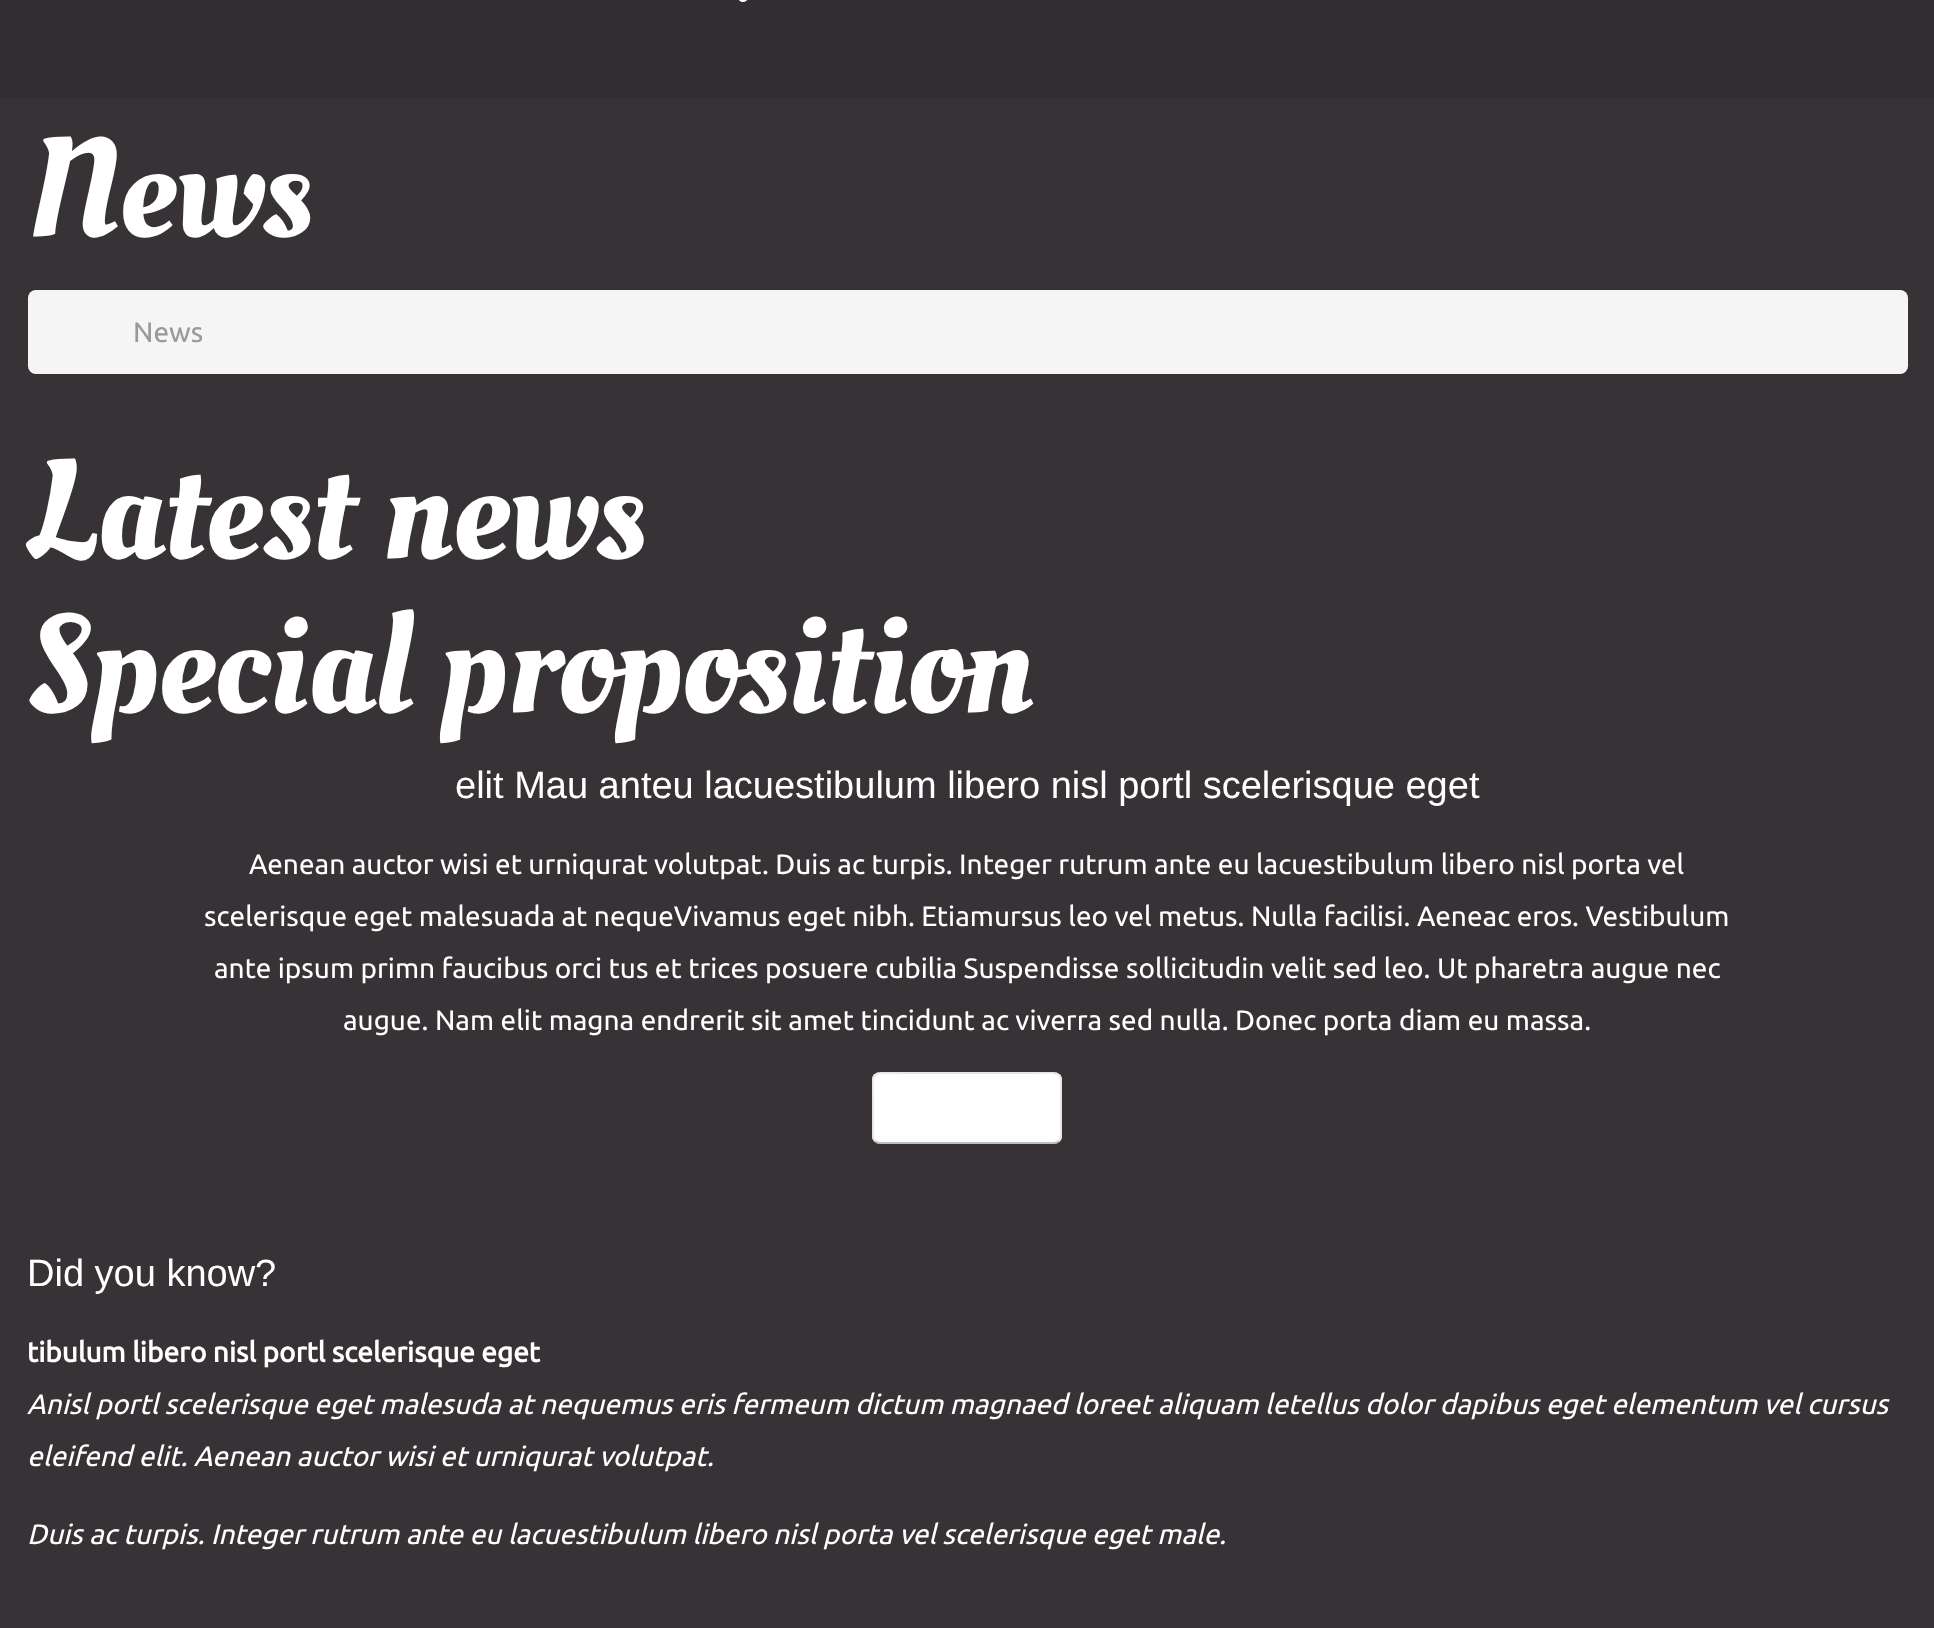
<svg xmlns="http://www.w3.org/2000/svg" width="1934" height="1628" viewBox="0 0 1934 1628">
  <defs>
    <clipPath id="clip1"><rect x="872" y="1072" width="190" height="72" rx="8"/></clipPath>
  </defs>
  <rect width="100%" height="100%" fill="rgb(54,50,53)"/>
  <rect x="0" y="0" width="1934" height="98" fill="rgb(48,46,51)"/>
  <rect x="739" y="-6" width="8" height="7" rx="4" fill="none" stroke="rgb(255,255,255)" stroke-width="2"/>
  <text x="27" y="236" font-family="Oleo Script" font-size="140" fill="rgb(255,255,255)">News</text>
  <rect x="28" y="290" width="1880" height="84" rx="8" fill="rgb(245,245,245)"/>
  <text x="133" y="342" font-family="Ubuntu" font-size="28" fill="rgb(153,153,153)">News</text>
  <g font-family="Oleo Script" font-size="140" fill="rgb(255,255,255)">
    <text>
      <tspan x="27" y="558">Latest news</tspan>
      <tspan x="27" y="712">Special proposition</tspan>
    </text>
  </g>
  <text x="455" y="798" font-family="Liberation Sans" font-size="38" fill="rgb(255,255,255)">elit Mau anteu lacuestibulum libero nisl portl scelerisque eget</text>
  <g font-family="Ubuntu" font-size="28" fill="rgb(255,255,255)">
    <text x="249" y="874">Aenean auctor wisi et urniqurat volutpat. Duis ac turpis. Integer rutrum ante eu lacuestibulum libero nisl porta vel</text>
    <text x="204" y="926">scelerisque eget malesuada at nequeVivamus eget nibh. Etiamursus leo vel metus. Nulla facilisi. Aeneac eros. Vestibulum</text>
    <text x="214" y="978">ante ipsum primn faucibus orci tus et trices posuere cubilia Suspendisse sollicitudin velit sed leo. Ut pharetra augue nec</text>
    <text x="343" y="1030">augue. Nam elit magna endrerit sit amet tincidunt ac viverra sed nulla. Donec porta diam eu massa.</text>
  </g>
  <rect x="872" y="1072" width="190" height="72" rx="8" fill="rgb(255,255,255)"/>
  <g clip-path="url(#clip1)">
    <rect x="872" y="1074" width="190" height="68" fill="rgb(255,255,255)"/>
  </g>
  <path d="M1059 1141C1057.5 1142.5 1056 1143 1054 1143H880C878 1143 876.5 1142.5 875 1141" fill="none" stroke="rgba(0,0,0,0.25)" stroke-width="2"/>
  <path d="M875 1141C871.5 1137.5 873 1130.5 873 1126.5V1108C873 1066.5 866.5 1073 909 1073H1025C1067.5 1073 1061 1066.5 1061 1108V1126.5C1061 1130.5 1062.5 1137.5 1059 1141" fill="none" stroke="rgba(0,0,0,0.1)" stroke-width="2"/>
  <text x="27" y="1286" font-family="Liberation Sans" font-size="38" fill="rgb(255,255,255)">Did you know?</text>
  <text x="27" y="1362" font-family="Ubuntu" font-size="28" font-weight="bold" fill="rgb(255,255,255)">tibulum libero nisl portl scelerisque eget</text>
  <g font-family="Ubuntu" font-size="28" font-style="italic" fill="rgb(255,255,255)">
    <text>
      <tspan x="27" y="1414">Anisl portl scelerisque eget malesuda at nequemus eris fermeum dictum magnaed loreet aliquam letellus dolor dapibus eget elementum vel cursus</tspan>
      <tspan x="27" y="1466">eleifend elit. Aenean auctor wisi et urniqurat volutpat.</tspan>
    </text>
    <text x="27" y="1544">Duis ac turpis. Integer rutrum ante eu lacuestibulum libero nisl porta vel scelerisque eget male.</text>
  </g>
</svg>
